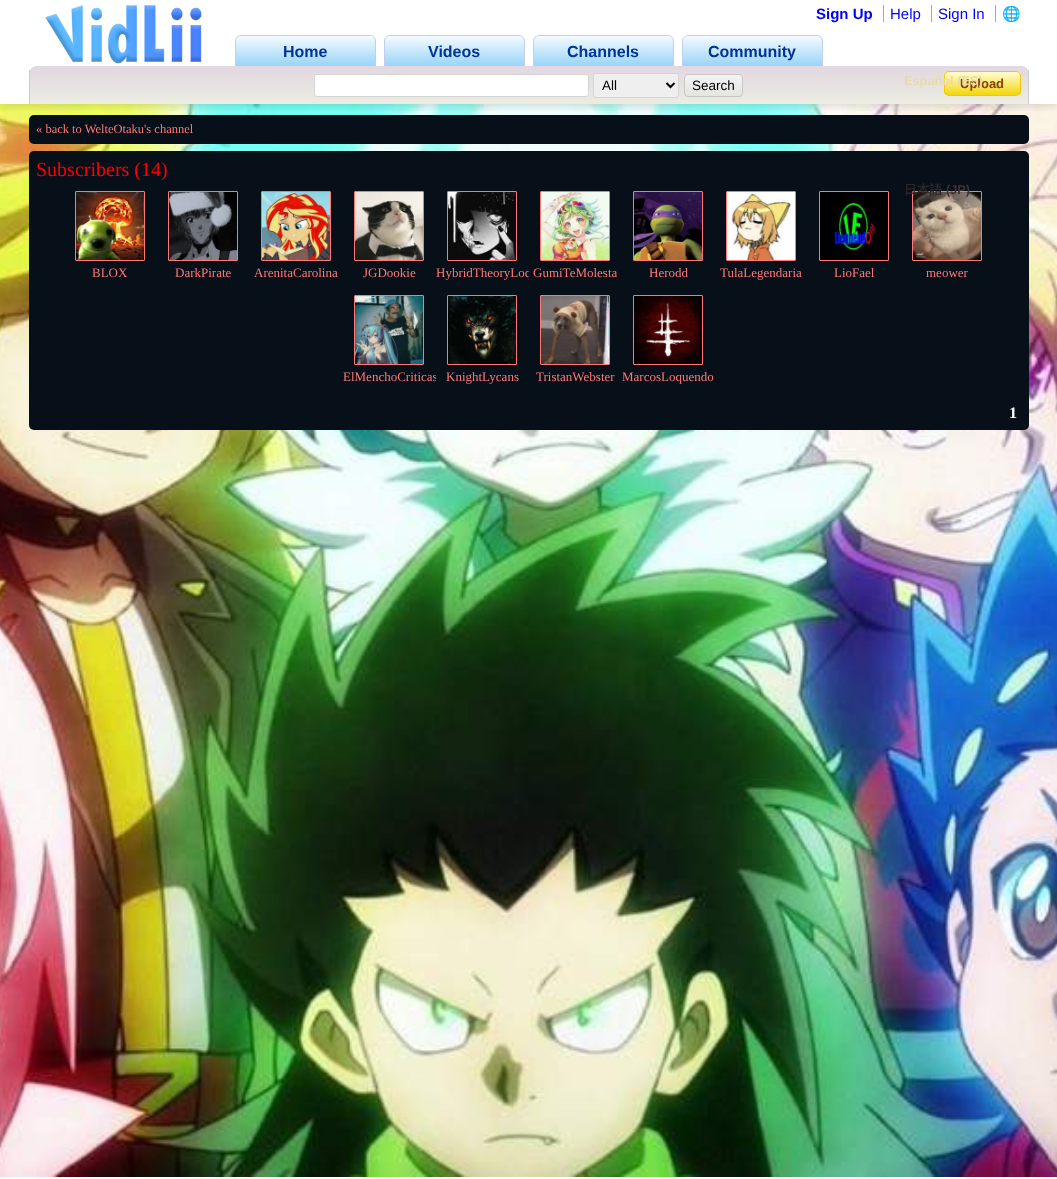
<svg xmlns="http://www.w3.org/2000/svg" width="1057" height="1179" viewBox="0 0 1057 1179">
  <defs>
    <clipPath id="clip1"><rect x="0" y="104" width="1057" height="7"/></clipPath>
    <clipPath id="clip2"><path d="M241 35H370C373.5 35 376 37.5 376 41V67H235V41C235 37.5 237.5 35 241 35Z"/></clipPath>
    <linearGradient id="g1" gradientUnits="userSpaceOnUse" x1="306" y1="36" x2="306" y2="67"><stop offset="0" stop-color="rgb(244,251,255)"/><stop offset="1" stop-color="rgb(150,211,247)"/></linearGradient>
    <clipPath id="clip3"><path d="M390 35H519C522.5 35 525 37.5 525 41V67H384V41C384 37.5 386.5 35 390 35Z"/></clipPath>
    <linearGradient id="g2" gradientUnits="userSpaceOnUse" x1="455" y1="36" x2="455" y2="67"><stop offset="0" stop-color="rgb(244,251,255)"/><stop offset="1" stop-color="rgb(150,211,247)"/></linearGradient>
    <clipPath id="clip4"><path d="M539 35H668C671.5 35 674 37.5 674 41V67H533V41C533 37.5 535.5 35 539 35Z"/></clipPath>
    <linearGradient id="g3" gradientUnits="userSpaceOnUse" x1="604" y1="36" x2="604" y2="67"><stop offset="0" stop-color="rgb(244,251,255)"/><stop offset="1" stop-color="rgb(150,211,247)"/></linearGradient>
    <clipPath id="clip5"><path d="M688 35H817C820.5 35 823 37.5 823 41V67H682V41C682 37.5 684.5 35 688 35Z"/></clipPath>
    <linearGradient id="g4" gradientUnits="userSpaceOnUse" x1="753" y1="36" x2="753" y2="67"><stop offset="0" stop-color="rgb(244,251,255)"/><stop offset="1" stop-color="rgb(150,211,247)"/></linearGradient>
    <linearGradient id="g5" gradientUnits="userSpaceOnUse" x1="529" y1="66" x2="529" y2="104"><stop offset="0.01" stop-color="rgb(226,215,226)"/><stop offset="1" stop-color="rgb(236,237,225)"/></linearGradient>
    <clipPath id="clip6"><rect x="944" y="71" width="77" height="25" rx="5"/></clipPath>
    <linearGradient id="g6" gradientUnits="userSpaceOnUse" x1="983" y1="72" x2="983" y2="95"><stop offset="0.07" stop-color="rgb(255,251,199)"/><stop offset="1" stop-color="rgb(242,215,12)"/></linearGradient>
    <clipPath id="clip7"><rect x="684" y="74" width="59" height="23" rx="4"/></clipPath>
    <linearGradient id="g7" gradientUnits="userSpaceOnUse" x1="714" y1="75" x2="714" y2="96"><stop offset="0" stop-color="rgb(244,244,244)"/><stop offset="1" stop-color="rgb(228,229,222)"/></linearGradient>
    <clipPath id="clip8"><rect x="436" y="191" width="93" height="104"/></clipPath>
    <clipPath id="clip9"><rect x="343" y="295" width="93" height="104"/></clipPath>
  </defs>
  <rect width="100%" height="100%" fill="rgb(255,255,255)"/>
  <image x="0" y="104" width="1057" height="1073" href="pic2.png"/>
  <rect x="29" y="115" width="1000" height="29" rx="5" fill="rgb(7,16,25)"/>
  <g clip-path="url(#clip1)">
    <rect x="0" y="2" width="1057" height="104" fill="rgba(0,0,0,0.15)" filter="blur(4.5px)"/>
  </g>
  <image x="45" y="5" width="157" height="59" href="pic1.png"/>
  <g clip-path="url(#clip2)">
    <rect x="235" y="36" width="141" height="30" fill="url(#g1)"/>
  </g>
  <path d="M241 35H370C373 35 376 38 376 41V67H235V41C235 38 238 35 241 35ZM241 36H370C373 36 375 38 375 41V67H236V41C236 38 238 36 241 36Z" fill="rgb(194,207,236)" fill-rule="evenodd"/>
  <text x="283" y="57" font-family="Liberation Sans" font-size="16" font-weight="bold" fill="rgb(0,51,153)">Home</text>
  <g clip-path="url(#clip3)">
    <rect x="384" y="36" width="141" height="30" fill="url(#g2)"/>
  </g>
  <path d="M390 35H519C522 35 525 38 525 41V67H384V41C384 38 387 35 390 35ZM390 36H519C522 36 524 38 524 41V67H385V41C385 38 387 36 390 36Z" fill="rgb(194,207,236)" fill-rule="evenodd"/>
  <text x="428" y="57" font-family="Liberation Sans" font-size="16" font-weight="bold" fill="rgb(0,51,153)">Videos</text>
  <g clip-path="url(#clip4)">
    <rect x="533" y="36" width="141" height="30" fill="url(#g3)"/>
  </g>
  <path d="M539 35H668C671 35 674 38 674 41V67H533V41C533 38 536 35 539 35ZM539 36H668C671 36 673 38 673 41V67H534V41C534 38 536 36 539 36Z" fill="rgb(194,207,236)" fill-rule="evenodd"/>
  <text x="567" y="57" font-family="Liberation Sans" font-size="16" font-weight="bold" fill="rgb(0,51,153)">Channels</text>
  <g clip-path="url(#clip5)">
    <rect x="682" y="36" width="141" height="30" fill="url(#g4)"/>
  </g>
  <path d="M688 35H817C820 35 823 38 823 41V67H682V41C682 38 685 35 688 35ZM688 36H817C820 36 822 38 822 41V67H683V41C683 38 685 36 688 36Z" fill="rgb(194,207,236)" fill-rule="evenodd"/>
  <text x="708" y="57" font-family="Liberation Sans" font-size="16" font-weight="bold" fill="rgb(0,51,153)">Community</text>
  <text x="816" y="19" font-family="Liberation Sans" font-size="15" font-weight="bold" fill="rgb(0,0,255)">Sign Up</text>
  <text x="1002" y="19" font-family="Noto Color Emoji" font-size="15" fill="rgb(0,0,0)">🌐</text>
  <rect x="995" y="5" width="1" height="17" fill="rgb(170,170,170)"/>
  <path d="M37 66H1021C1025.5 66 1029 69.5 1029 74V104H29V74C29 69.5 32.5 66 37 66Z" fill="url(#g5)"/>
  <g clip-path="url(#clip6)">
    <rect x="944" y="72" width="77" height="23" fill="url(#g6)"/>
  </g>
  <rect x="944.5" y="71.5" width="76" height="24" rx="4.5" fill="none" stroke="rgb(244,200,0)"/>
  <text x="960" y="88" font-family="Liberation Sans" font-size="13" font-weight="bold" fill="rgb(138,65,0)">Upload</text>
  <text x="904" y="85" font-family="Liberation Sans" font-size="12.75" font-weight="bold" fill="rgb(232,218,171)">Español (ES)</text>
  <rect x="29" y="151" width="1000" height="279" rx="5" fill="rgb(7,16,25)"/>
  <rect x="912.5" y="191.5" width="69" height="69" rx="0.5" fill="none" stroke="rgb(255,120,120)"/>
  <image x="913" y="192" width="68" height="68" href="pic12.png"/>
  <text x="904" y="194" font-family="WenQuanYi Zen Hei" font-size="12.75" font-weight="bold" fill="rgb(48,37,41)">日本語</text>
  <text x="946" y="194" font-family="Liberation Sans" font-size="12.75" font-weight="bold" fill="rgb(61,51,54)">(JP)</text>
  <text x="890" y="19" font-family="Liberation Sans" font-size="15" fill="rgb(0,0,255)">Help</text>
  <rect x="883" y="5" width="1" height="17" fill="rgb(170,170,170)"/>
  <text x="938" y="19" font-family="Liberation Sans" font-size="15" fill="rgb(0,0,255)">Sign In</text>
  <rect x="931" y="5" width="1" height="17" fill="rgb(170,170,170)"/>
  <rect x="1028" y="70" width="1" height="34" fill="rgb(204,204,204)"/>
  <rect x="29" y="70" width="1" height="34" fill="rgb(204,204,204)"/>
  <rect x="314.5" y="74.5" width="274" height="22" rx="2.5" fill="rgb(255,255,255)" stroke="rgb(213,213,213)"/>
  <rect x="593.5" y="73.5" width="85" height="24" rx="2.5" fill="rgb(239,239,239)" stroke="rgb(213,213,213)"/>
  <path d="M666.5 83L670.5 87L674.5 83" fill="none" stroke="rgb(0,0,0)" stroke-width="2"/>
  <text x="602" y="90" font-family="Liberation Sans" font-size="13.5" fill="rgb(0,0,0)">All</text>
  <g clip-path="url(#clip7)">
    <rect x="684" y="75" width="59" height="21" fill="url(#g7)"/>
  </g>
  <rect x="684.5" y="74.5" width="58" height="22" rx="3.5" fill="none" stroke="rgb(199,199,199)"/>
  <text x="692" y="90" font-family="Liberation Sans" font-size="13.5" fill="rgb(0,0,0)">Search</text>
  <text x="36" y="133" font-family="Liberation Serif" font-size="12.5" fill="rgb(255,120,120)">« back to WelteOtaku's channel</text>
  <text x="36" y="176" font-family="Liberation Serif" font-size="20" fill="rgb(255,0,0)">Subscribers (14)</text>
  <rect x="75.5" y="191.5" width="69" height="69" rx="0.5" fill="none" stroke="rgb(255,120,120)"/>
  <image x="76" y="192" width="68" height="68" href="pic3.png"/>
  <text x="92" y="277" font-family="Liberation Serif" font-size="13" fill="rgb(255,120,120)">BLOX</text>
  <rect x="168.5" y="191.5" width="69" height="69" rx="0.5" fill="none" stroke="rgb(255,120,120)"/>
  <image x="169" y="192" width="68" height="68" href="pic4.png"/>
  <text x="175" y="277" font-family="Liberation Serif" font-size="13" fill="rgb(255,120,120)">DarkPirate</text>
  <rect x="261.5" y="191.5" width="69" height="69" rx="0.5" fill="none" stroke="rgb(255,120,120)"/>
  <image x="262" y="192" width="68" height="68" href="pic5.png"/>
  <text x="254" y="277" font-family="Liberation Serif" font-size="13" fill="rgb(255,120,120)">ArenitaCarolina</text>
  <rect x="354.5" y="191.5" width="69" height="69" rx="0.5" fill="none" stroke="rgb(255,120,120)"/>
  <image x="355" y="192" width="68" height="68" href="pic6.png"/>
  <text x="363" y="277" font-family="Liberation Serif" font-size="13" fill="rgb(255,120,120)">JGDookie</text>
  <rect x="447.5" y="191.5" width="69" height="69" rx="0.5" fill="none" stroke="rgb(255,120,120)"/>
  <image x="448" y="192" width="68" height="68" href="pic7.png"/>
  <g clip-path="url(#clip8)">
    <text x="436" y="277" font-family="Liberation Serif" font-size="13" fill="rgb(255,120,120)">HybridTheoryLoq</text>
  </g>
  <rect x="540.5" y="191.5" width="69" height="69" rx="0.5" fill="none" stroke="rgb(255,120,120)"/>
  <image x="541" y="192" width="68" height="68" href="pic8.png"/>
  <text x="533" y="277" font-family="Liberation Serif" font-size="13" fill="rgb(255,120,120)">GumiTeMolesta</text>
  <rect x="633.5" y="191.5" width="69" height="69" rx="0.5" fill="none" stroke="rgb(255,120,120)"/>
  <image x="634" y="192" width="68" height="68" href="pic9.png"/>
  <text x="649" y="277" font-family="Liberation Serif" font-size="13" fill="rgb(255,120,120)">Herodd</text>
  <rect x="726.5" y="191.5" width="69" height="69" rx="0.5" fill="none" stroke="rgb(255,120,120)"/>
  <image x="727" y="192" width="68" height="68" href="pic10.png"/>
  <text x="720" y="277" font-family="Liberation Serif" font-size="13" fill="rgb(255,120,120)">TulaLegendaria</text>
  <rect x="819.5" y="191.5" width="69" height="69" rx="0.5" fill="none" stroke="rgb(255,120,120)"/>
  <image x="820" y="192" width="68" height="68" href="pic11.png"/>
  <g font-family="Liberation Serif" font-size="13" fill="rgb(255,120,120)">
    <text x="834" y="277">LioFael</text>
    <text x="926" y="277">meower</text>
  </g>
  <rect x="354.5" y="295.5" width="69" height="69" rx="0.5" fill="none" stroke="rgb(255,120,120)"/>
  <image x="355" y="296" width="68" height="68" href="pic13.png"/>
  <g clip-path="url(#clip9)">
    <text x="343" y="381" font-family="Liberation Serif" font-size="13" fill="rgb(255,120,120)">ElMenchoCriticas</text>
  </g>
  <rect x="447.5" y="295.5" width="69" height="69" rx="0.5" fill="none" stroke="rgb(255,120,120)"/>
  <image x="448" y="296" width="68" height="68" href="pic14.png"/>
  <text x="446" y="381" font-family="Liberation Serif" font-size="13" fill="rgb(255,120,120)">KnightLycans</text>
  <rect x="540.5" y="295.5" width="69" height="69" rx="0.5" fill="none" stroke="rgb(255,120,120)"/>
  <image x="541" y="296" width="68" height="68" href="pic15.png"/>
  <text x="536" y="381" font-family="Liberation Serif" font-size="13" fill="rgb(255,120,120)">TristanWebster</text>
  <rect x="633.5" y="295.5" width="69" height="69" rx="0.5" fill="none" stroke="rgb(255,120,120)"/>
  <image x="634" y="296" width="68" height="68" href="pic16.png"/>
  <text x="622" y="381" font-family="Liberation Serif" font-size="13" fill="rgb(255,120,120)">MarcosLoquendo</text>
  <text x="1009" y="418" font-family="Liberation Serif" font-size="16" font-weight="bold" fill="rgb(255,255,255)">1</text>
</svg>
